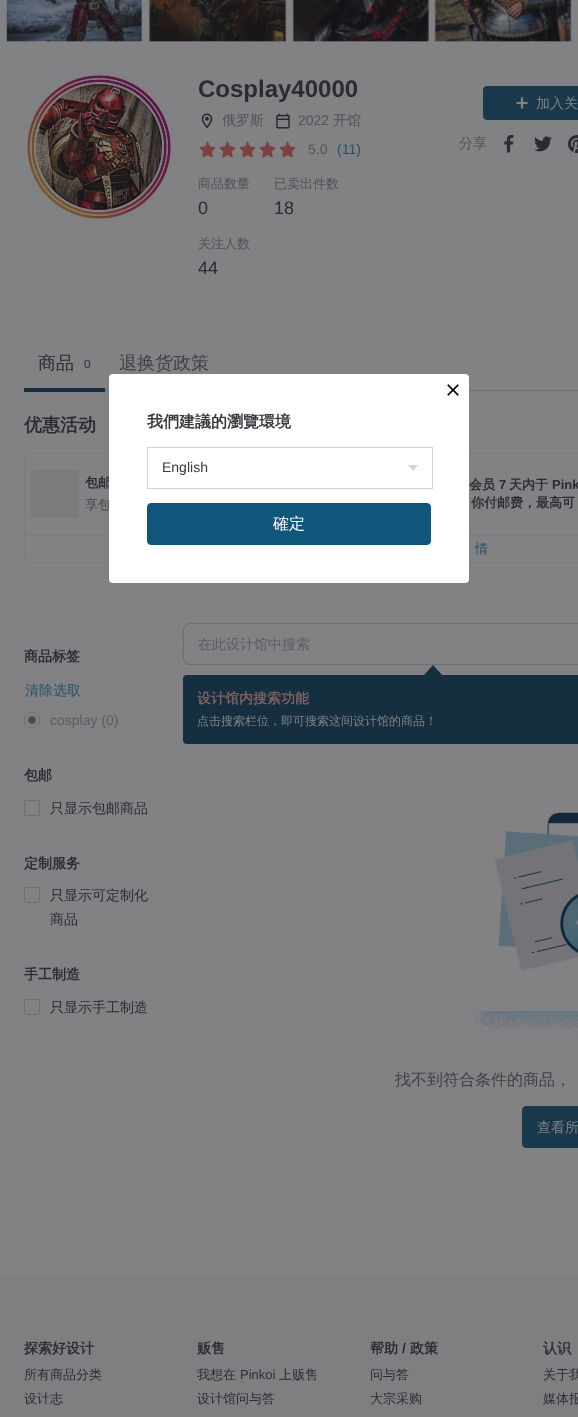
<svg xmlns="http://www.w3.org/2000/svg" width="578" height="1417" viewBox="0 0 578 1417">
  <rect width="100%" height="100%" fill="rgb(130,130,133)"/>
  <image x="0" y="0" width="578" height="46" href="pic1.png"/>
  <image x="24" y="72" width="150" height="150" href="pic2.png"/>
  <image x="24" y="72" width="150" height="150" href="pic3.png"/>
  <text x="198" y="97" font-family="Liberation Sans" font-size="24" font-weight="bold" fill="rgb(43,43,49)">Cosplay40000</text>
  <image x="201" y="113" width="12" height="16" href="pic4.png"/>
  <text x="222" y="125" font-family="WenQuanYi Zen Hei" font-size="14" font-weight="500" fill="rgb(82,82,87)">俄罗斯</text>
  <image x="276" y="113" width="14" height="16" href="pic5.png"/>
  <text x="298" y="125" font-family="Liberation Sans" font-size="14" fill="rgb(82,82,87)">2022</text>
  <text x="333" y="125" font-family="WenQuanYi Zen Hei" font-size="14" font-weight="500" fill="rgb(82,82,87)">开馆</text>
  <image x="199" y="141" width="17" height="17" href="pic6.png"/>
  <image x="219" y="141" width="17" height="17" href="pic6.png"/>
  <image x="239" y="141" width="17" height="17" href="pic6.png"/>
  <image x="259" y="141" width="17" height="17" href="pic6.png"/>
  <image x="279" y="141" width="17" height="17" href="pic6.png"/>
  <text x="308" y="154" font-family="Liberation Sans" font-size="14" fill="rgb(82,82,87)">5.0</text>
  <text x="337" y="154" font-family="Liberation Sans" font-size="14" fill="rgb(38,81,102)">(11)</text>
  <text x="198" y="188" font-family="WenQuanYi Zen Hei" font-size="13" font-weight="500" fill="rgb(82,82,87)">商品数量</text>
  <text x="198" y="214" font-family="Liberation Sans" font-size="18" fill="rgb(43,43,49)">0</text>
  <text x="274" y="188" font-family="WenQuanYi Zen Hei" font-size="13" font-weight="500" fill="rgb(82,82,87)">已卖出件数</text>
  <text x="274" y="214" font-family="Liberation Sans" font-size="18" fill="rgb(43,43,49)">18</text>
  <text x="198" y="248" font-family="WenQuanYi Zen Hei" font-size="13" font-weight="500" fill="rgb(82,82,87)">关注人数</text>
  <text x="198" y="274" font-family="Liberation Sans" font-size="18" fill="rgb(43,43,49)">44</text>
  <rect x="483.5" y="86.5" width="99" height="33" rx="3.5" fill="rgb(25,56,75)" stroke="rgb(25,56,75)"/>
  <image x="516" y="97" width="12" height="12" href="pic7.png"/>
  <text x="536" y="108" font-family="WenQuanYi Zen Hei" font-size="14" font-weight="500" fill="rgb(130,130,133)">加入关</text>
  <text x="459" y="148" font-family="WenQuanYi Zen Hei" font-size="14" font-weight="500" fill="rgb(82,82,87)">分享</text>
  <image x="504" y="135" width="10" height="18" href="pic8.png"/>
  <image x="534" y="136" width="18" height="16" href="pic9.png"/>
  <image x="568" y="135" width="10" height="18" href="pic10.png"/>
  <rect x="105" y="390" width="473" height="1" fill="rgb(111,111,115)"/>
  <rect x="24" y="388" width="81" height="4" fill="rgb(21,47,64)"/>
  <text x="38" y="369" font-family="WenQuanYi Zen Hei" font-size="18" font-weight="500" fill="rgb(43,43,49)">商品</text>
  <text x="84" y="368" font-family="Liberation Sans" font-size="12" fill="rgb(21,47,64)">0</text>
  <text x="119" y="369" font-family="WenQuanYi Zen Hei" font-size="18" font-weight="500" fill="rgb(63,63,68)">退换货政策</text>
  <text x="24" y="431" font-family="WenQuanYi Zen Hei" font-size="18" font-weight="bold" fill="rgb(43,43,49)">优惠活动</text>
  <rect x="24.5" y="453.5" width="269" height="109" rx="7.5" fill="none" stroke="rgb(123,123,126)"/>
  <rect x="31" y="470" width="48" height="48" rx="4" fill="rgb(123,123,126)"/>
  <text x="85" y="487" font-family="WenQuanYi Zen Hei" font-size="13" font-weight="bold" fill="rgb(43,43,49)">包邮</text>
  <text x="85" y="509" font-family="WenQuanYi Zen Hei" font-size="13" font-weight="500" fill="rgb(72,72,78)">享包</text>
  <rect x="25" y="535" width="84" height="1" fill="rgb(123,123,126)"/>
  <rect x="304.5" y="453.5" width="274" height="109" fill="none" stroke="rgb(123,123,126)"/>
  <text x="469" y="489" font-family="WenQuanYi Zen Hei" font-size="13" font-weight="bold" fill="rgb(43,43,49)">会员</text>
  <text x="499" y="489" font-family="Liberation Sans" font-size="13" font-weight="bold" fill="rgb(43,43,49)">7</text>
  <text x="509" y="489" font-family="WenQuanYi Zen Hei" font-size="13" font-weight="bold" fill="rgb(43,43,49)">天内于</text>
  <text x="552" y="489" font-family="Liberation Sans" font-size="13" font-weight="bold" fill="rgb(43,43,49)">Pink</text>
  <text x="471" y="507" font-family="WenQuanYi Zen Hei" font-size="13" font-weight="bold" fill="rgb(43,43,49)">你付邮费，最高可</text>
  <rect x="469" y="535" width="109" height="1" fill="rgb(123,123,126)"/>
  <text x="475" y="553" font-family="WenQuanYi Zen Hei" font-size="13" font-weight="500" fill="rgb(38,81,102)">情</text>
  <text x="24" y="661" font-family="WenQuanYi Zen Hei" font-size="14" font-weight="bold" fill="rgb(43,43,49)">商品标签</text>
  <text x="25" y="695" font-family="WenQuanYi Zen Hei" font-size="14" font-weight="500" fill="rgb(38,81,102)">清除选取</text>
  <image x="28" y="716" width="8" height="8" href="pic11.png"/>
  <circle cx="32" cy="720" r="7.5" fill="none" stroke="rgb(111,111,114)"/>
  <text x="50" y="725" font-family="Liberation Sans" font-size="14" fill="rgb(92,92,97)">cosplay (0)</text>
  <text x="24" y="780" font-family="WenQuanYi Zen Hei" font-size="14" font-weight="bold" fill="rgb(43,43,49)">包邮</text>
  <rect x="24.5" y="800.5" width="15" height="15" rx="1.5" fill="none" stroke="rgb(111,111,115)"/>
  <text x="50" y="813" font-family="WenQuanYi Zen Hei" font-size="14" font-weight="500" fill="rgb(43,43,49)">只显示包邮商品</text>
  <text x="24" y="868" font-family="WenQuanYi Zen Hei" font-size="14" font-weight="bold" fill="rgb(43,43,49)">定制服务</text>
  <rect x="24.5" y="887.5" width="15" height="15" rx="1.5" fill="none" stroke="rgb(111,111,115)"/>
  <g font-family="WenQuanYi Zen Hei" font-size="14" font-weight="500" fill="rgb(43,43,49)">
    <text>
      <tspan x="50" y="900">只显示可定制化</tspan>
      <tspan x="50" y="924">商品</tspan>
    </text>
  </g>
  <text x="24" y="979" font-family="WenQuanYi Zen Hei" font-size="14" font-weight="bold" fill="rgb(43,43,49)">手工制造</text>
  <rect x="24.5" y="999.5" width="15" height="15" rx="1.5" fill="none" stroke="rgb(111,111,115)"/>
  <text x="50" y="1012" font-family="WenQuanYi Zen Hei" font-size="14" font-weight="500" fill="rgb(43,43,49)">只显示手工制造</text>
  <path d="M191 623H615V665H189C180 663 183 650 183 644C183 637 180 623 191 623ZM191 624H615V664H191C187 664 184 661 184 657V631C184 627 187 624 191 624Z" fill="rgb(111,111,115)" fill-rule="evenodd"/>
  <text x="198" y="649" font-family="WenQuanYi Zen Hei" font-size="14" font-weight="500" fill="rgb(92,92,97)">在此设计馆中搜索</text>
  <rect x="183" y="675" width="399" height="69" rx="4" fill="rgb(21,47,64)"/>
  <path d="M442 675H424L433 665Z" fill="rgb(21,47,64)"/>
  <text x="197" y="703" font-family="WenQuanYi Zen Hei" font-size="14" font-weight="bold" fill="rgb(126,97,98)">设计馆内搜索功能</text>
  <text x="197" y="725" font-family="WenQuanYi Zen Hei" font-size="12" font-weight="500" fill="rgb(130,130,133)">点击搜索栏位，即可搜索这间设计馆的商品！</text>
  <image x="468" y="812" width="110" height="230" href="pic12.png"/>
  <text x="395" y="1085" font-family="WenQuanYi Zen Hei" font-size="16" font-weight="500" fill="rgb(63,63,68)">找不到符合条件的商品，</text>
  <rect x="522.5" y="1106.5" width="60" height="41" rx="3.5" fill="rgb(25,56,75)" stroke="rgb(25,56,75)"/>
  <text x="537" y="1132" font-family="WenQuanYi Zen Hei" font-size="14" font-weight="500" fill="rgb(130,130,133)">查看所</text>
  <rect x="109" y="374" width="360" height="209" rx="4" fill="rgb(255,255,255)"/>
  <image x="447" y="384" width="12" height="12" href="pic13.png"/>
  <text x="147" y="427" font-family="WenQuanYi Zen Hei" font-size="16" font-weight="bold" fill="rgb(57,57,62)">我們建議的瀏覽環境</text>
  <rect x="147.5" y="447.5" width="285" height="41" fill="none" stroke="rgb(211,211,213)"/>
  <path d="M408 465H418L413 471Z" fill="rgb(211,211,213)" fill-rule="evenodd"/>
  <text x="162" y="472" font-family="Liberation Sans" font-size="14" fill="rgb(57,57,62)">English</text>
  <rect x="147.5" y="503.5" width="283" height="41" rx="3.5" fill="rgb(16,86,123)" stroke="rgb(16,86,123)"/>
  <text x="273" y="529" font-family="WenQuanYi Zen Hei" font-size="16" font-weight="500" fill="rgb(255,255,255)">確定</text>
  <rect x="0" y="1276" width="578" height="141" fill="rgb(127,127,130)"/>
  <text x="24" y="1353" font-family="WenQuanYi Zen Hei" font-size="14" font-weight="bold" fill="rgb(43,43,49)">探索好设计</text>
  <g font-family="WenQuanYi Zen Hei" font-size="13" font-weight="500" fill="rgb(43,43,49)">
    <text>
      <tspan x="24" y="1379">所有商品分类</tspan>
      <tspan x="24" y="1403">设计志</tspan>
    </text>
  </g>
  <text x="197" y="1353" font-family="WenQuanYi Zen Hei" font-size="14" font-weight="bold" fill="rgb(43,43,49)">贩售</text>
  <text x="197" y="1379" font-family="WenQuanYi Zen Hei" font-size="13" font-weight="500" fill="rgb(43,43,49)">我想在</text>
  <text x="240" y="1379" font-family="Liberation Sans" font-size="13" fill="rgb(43,43,49)">Pinkoi</text>
  <g font-family="WenQuanYi Zen Hei" font-size="13" font-weight="500" fill="rgb(43,43,49)">
    <text x="279" y="1379">上贩售</text>
    <text x="197" y="1403">设计馆问与答</text>
  </g>
  <text x="370" y="1353" font-family="WenQuanYi Zen Hei" font-size="14" font-weight="bold" fill="rgb(43,43,49)">帮助</text>
  <text x="402" y="1353" font-family="Liberation Sans" font-size="14" font-weight="bold" fill="rgb(43,43,49)">/</text>
  <text x="410" y="1353" font-family="WenQuanYi Zen Hei" font-size="14" font-weight="bold" fill="rgb(43,43,49)">政策</text>
  <g font-family="WenQuanYi Zen Hei" font-size="13" font-weight="500" fill="rgb(43,43,49)">
    <text>
      <tspan x="370" y="1379">问与答</tspan>
      <tspan x="370" y="1403">大宗采购</tspan>
    </text>
  </g>
  <text x="543" y="1353" font-family="WenQuanYi Zen Hei" font-size="14" font-weight="bold" fill="rgb(43,43,49)">认识</text>
  <g font-family="WenQuanYi Zen Hei" font-size="13" font-weight="500" fill="rgb(43,43,49)">
    <text>
      <tspan x="543" y="1379">关于我</tspan>
      <tspan x="543" y="1403">媒体报</tspan>
    </text>
  </g>
</svg>
